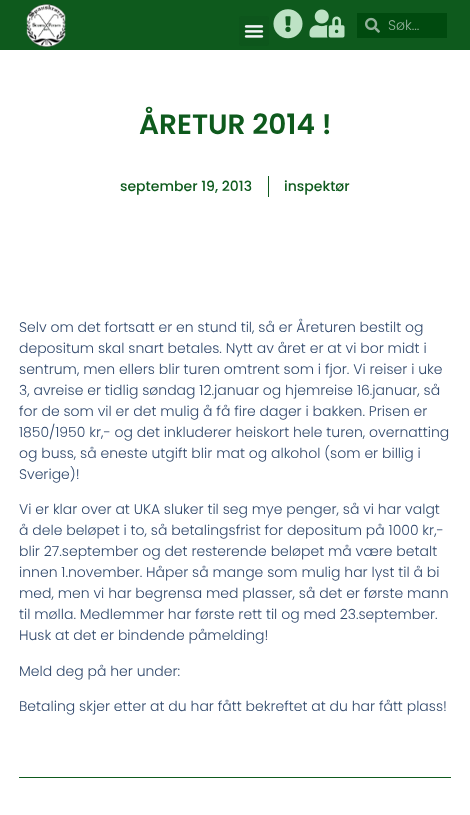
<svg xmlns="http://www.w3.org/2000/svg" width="470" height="815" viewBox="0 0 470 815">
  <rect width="100%" height="100%" fill="rgb(255,255,255)"/>
  <rect x="0" y="0" width="470" height="50" fill="rgb(14,90,29)"/>
  <image x="26" y="3" width="40" height="45" href="pic1.png"/>
  <rect x="239" y="16" width="30" height="30" rx="3" fill="rgb(13,86,28)"/>
  <image x="244" y="25" width="20" height="13" href="pic2.png"/>
  <image x="273" y="9" width="30" height="30" href="pic3.png"/>
  <image x="309" y="9" width="36" height="29" href="pic4.png"/>
  <rect x="357" y="13" width="90" height="25" fill="rgb(0,74,15)"/>
  <image x="365" y="17" width="15" height="16" href="pic5.png"/>
  <text x="388" y="30" font-family="Poppins" font-size="14" font-weight="300" fill="rgb(146,177,155)">Søk...</text>
  <text x="139" y="134" font-family="Poppins" font-size="28" font-weight="600" fill="rgb(14,90,29)">ÅRETUR 2014 !</text>
  <text x="120" y="191" font-family="Poppins" font-size="14" font-weight="500" fill="rgb(14,90,29)">september 19, 2013</text>
  <rect x="268" y="176" width="1" height="21" fill="rgb(14,90,29)"/>
  <text x="284" y="191" font-family="Poppins" font-size="14" font-weight="500" fill="rgb(14,90,29)">inspektør</text>
  <g font-family="Poppins" font-size="14" font-weight="300" fill="rgb(50,74,109)">
    <text>
      <tspan x="19" y="332">Selv om det fortsatt er en stund til, så er Åreturen bestilt og</tspan>
      <tspan x="19" y="353">depositum skal snart betales. Nytt av året er at vi bor midt i</tspan>
      <tspan x="19" y="374">sentrum, men ellers blir turen omtrent som i fjor. Vi reiser i uke</tspan>
      <tspan x="19" y="395">3, avreise er tidlig søndag 12.januar og hjemreise 16.januar, så</tspan>
      <tspan x="19" y="416">for de som vil er det mulig å få fire dager i bakken. Prisen er</tspan>
      <tspan x="19" y="437">1850/1950 kr,- og det inkluderer heiskort hele turen, overnatting</tspan>
      <tspan x="19" y="458">og buss, så eneste utgift blir mat og alkohol (som er billig i</tspan>
      <tspan x="19" y="479">Sverige)!</tspan>
    </text>
    <text>
      <tspan x="19" y="514">Vi er klar over at UKA sluker til seg mye penger, så vi har valgt</tspan>
      <tspan x="19" y="535">å dele beløpet i to, så betalingsfrist for depositum på 1000 kr,-</tspan>
      <tspan x="19" y="556">blir 27.september og det resterende beløpet må være betalt</tspan>
      <tspan x="19" y="577">innen 1.november. Håper så mange som mulig har lyst til å bi</tspan>
      <tspan x="19" y="598">med, men vi har begrensa med plasser, så det er første mann</tspan>
      <tspan x="19" y="619">til mølla. Medlemmer har første rett til og med 23.september.</tspan>
      <tspan x="19" y="640">Husk at det er bindende påmelding!</tspan>
    </text>
    <text x="19" y="676">Meld deg på her under:</text>
    <text x="19" y="711">Betaling skjer etter at du har fått bekreftet at du har fått plass!</text>
  </g>
  <rect x="19" y="777" width="432" height="1" fill="rgb(14,90,29)"/>
</svg>
